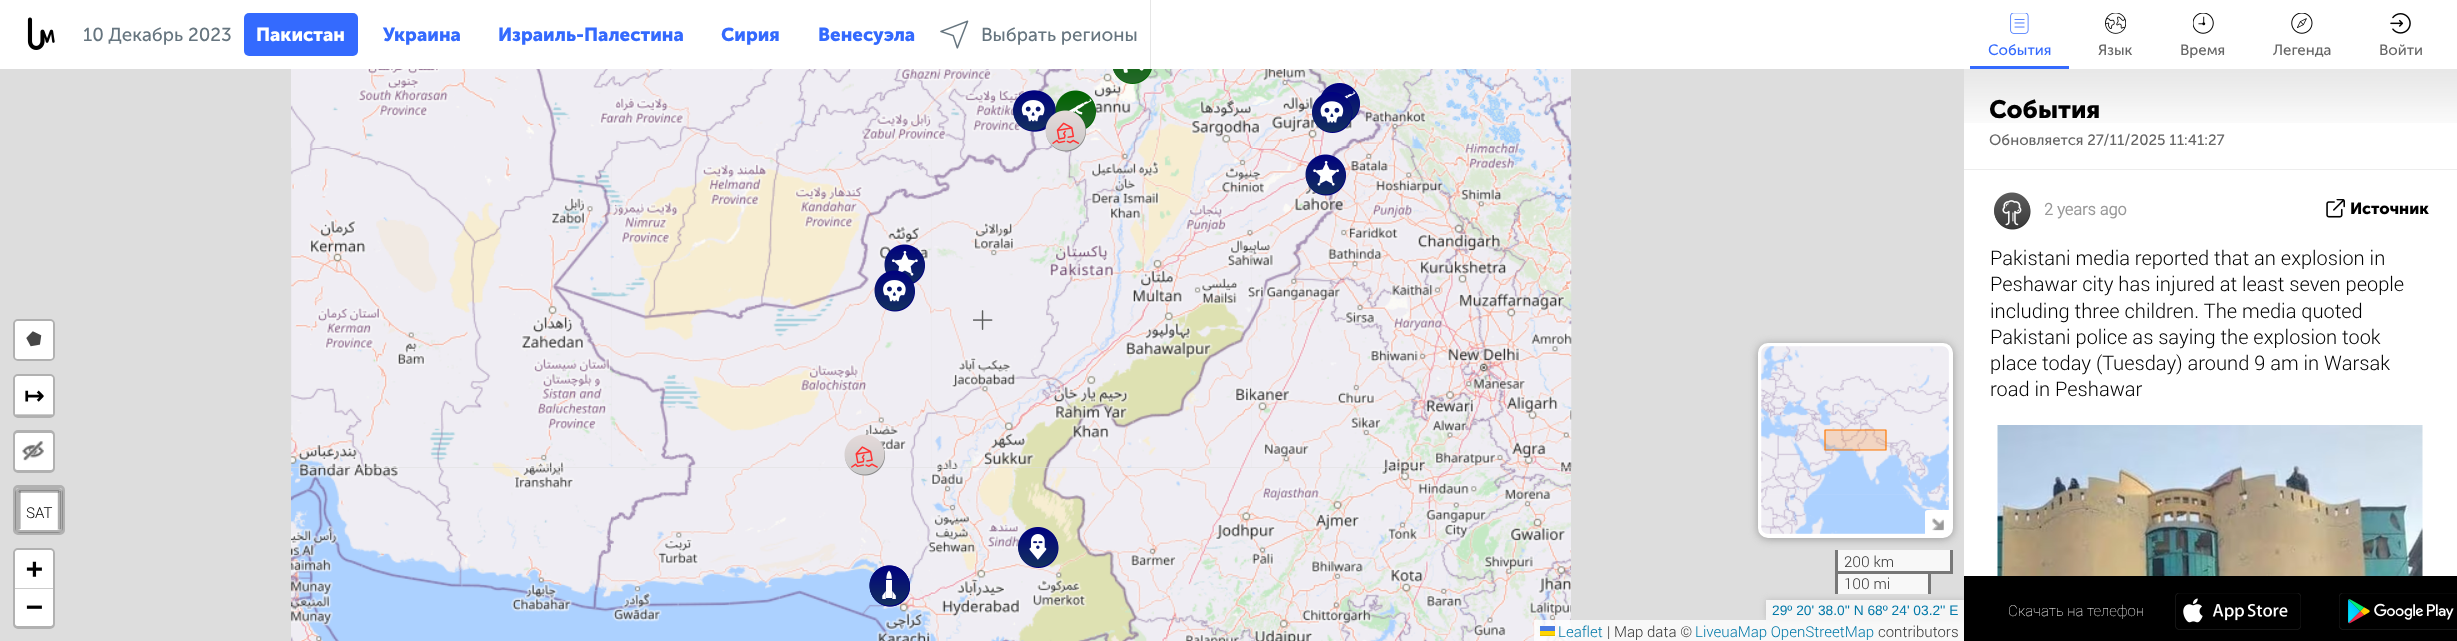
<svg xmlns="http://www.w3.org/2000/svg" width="2457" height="641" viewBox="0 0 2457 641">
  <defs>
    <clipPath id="clip1"><path d="M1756 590H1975V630H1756ZM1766 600H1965V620H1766Z" clip-rule="evenodd"/></clipPath>
  </defs>
  <rect width="100%" height="100%" fill="rgb(221,221,221)"/>
  <rect x="0" y="0" width="2457" height="69" fill="rgb(255,255,255)"/>
  <image x="27" y="17" width="28" height="33" href="pic1.png"/>
  <text x="83" y="41" font-family="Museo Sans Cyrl" font-size="18.75" fill="rgb(102,117,127)">10 Декабрь 2023</text>
  <rect x="244" y="13" width="114" height="43" rx="5" fill="rgb(52,106,254)"/>
  <text x="256" y="41" font-family="Museo Sans Cyrl" font-size="18.75" font-weight="bold" fill="rgb(255,255,255)">Пакистан</text>
  <g font-family="Museo Sans Cyrl" font-size="18.75" font-weight="bold" fill="rgb(52,106,254)">
    <text x="383" y="41">Украина</text>
    <text x="498" y="41">Израиль-Палестина</text>
    <text x="721" y="41">Сирия</text>
    <text x="818" y="41">Венесуэла</text>
  </g>
  <image x="940" y="20" width="29" height="29" href="pic2.png"/>
  <text x="981" y="41" font-family="Museo Sans Cyrl" font-size="18.75" fill="rgb(102,117,127)">Выбрать регионы</text>
  <rect x="1150" y="0" width="1" height="69" fill="rgb(230,230,230)"/>
  <rect x="1838" y="574" width="90" height="20" fill="rgb(248,248,248)"/>
  <image x="931" y="69" width="320" height="79" href="pic5.png"/>
  <image x="931" y="148" width="321" height="320" href="pic9.png"/>
  <image x="611" y="147" width="321" height="321" href="pic8.png"/>
  <image x="611" y="69" width="320" height="79" href="pic4.png"/>
  <image x="291" y="147" width="321" height="321" href="pic7.png"/>
  <image x="291" y="69" width="320" height="79" href="pic3.png"/>
  <image x="1251" y="147" width="321" height="321" href="pic10.png"/>
  <image x="1251" y="69" width="320" height="79" href="pic6.png"/>
  <image x="291" y="468" width="320" height="173" href="pic11.png"/>
  <image x="611" y="468" width="320" height="173" href="pic12.png"/>
  <image x="931" y="468" width="320" height="173" href="pic13.png"/>
  <image x="1251" y="468" width="320" height="173" href="pic14.png"/>
  <image x="1113" y="69" width="39" height="15" href="pic15.png"/>
  <image x="1028" y="90" width="28" height="42" href="pic18.png"/>
  <image x="1013" y="90" width="41" height="42" href="pic16.png"/>
  <image x="1320" y="83" width="40" height="39" href="pic17.png"/>
  <image x="1055" y="90" width="41" height="40" href="pic19.png"/>
  <image x="1312" y="92" width="41" height="41" href="pic20.png"/>
  <image x="1045" y="110" width="41" height="42" href="pic21.png"/>
  <image x="1305" y="154" width="41" height="42" href="pic22.png"/>
  <image x="884" y="244" width="41" height="40" href="pic23.png"/>
  <image x="874" y="270" width="41" height="42" href="pic24.png"/>
  <image x="844" y="434" width="41" height="42" href="pic25.png"/>
  <image x="1018" y="527" width="41" height="41" href="pic26.png"/>
  <image x="869" y="565" width="41" height="42" href="pic27.png"/>
  <image x="869" y="565" width="41" height="42" href="pic28.png"/>
  <image x="973" y="310" width="20" height="20" href="pic29.png"/>
  <rect x="14.5" y="320.5" width="39" height="39" rx="3.5" fill="none" stroke="rgb(177,177,177)" stroke-width="3"/>
  <rect x="15" y="321" width="38" height="38" rx="2.5" fill="rgb(255,255,255)"/>
  <image x="26" y="331" width="16" height="16" href="pic30.png"/>
  <rect x="14.5" y="375.5" width="39" height="41" rx="3.5" fill="none" stroke="rgb(177,177,177)" stroke-width="3"/>
  <path d="M17.5 376H50.5C52 376 53 377 53 378.5V415H15V378.5C15 377 16 376 17.5 376Z" fill="rgb(255,255,255)"/>
  <rect x="15" y="414" width="38" height="1" fill="rgb(204,204,204)"/>
  <text x="24" y="404" font-family="DejaVu Sans" font-size="24" font-weight="bold" fill="rgb(0,0,0)">↦</text>
  <rect x="14.5" y="431.5" width="39" height="40" rx="3.5" fill="none" stroke="rgb(177,177,177)" stroke-width="3"/>
  <rect x="15" y="433" width="38" height="37" rx="2.5" fill="rgb(255,255,255)"/>
  <image x="22" y="441" width="22" height="20" href="pic31.png"/>
  <rect x="14.5" y="486.5" width="49" height="47" rx="3.5" fill="none" stroke="rgb(177,177,177)" stroke-width="3"/>
  <rect x="16.5" y="489.5" width="45" height="42" rx="3.5" fill="none" stroke="rgba(0,0,0,0.2)" stroke-width="3"/>
  <path d="M20 492.5H57.5V530H20V527.5Z" fill="rgb(255,255,255)"/>
  <rect x="19" y="490" width="40" height="3" fill="rgba(0,0,0,0.2)"/>
  <rect x="58" y="491" width="3" height="38" fill="rgba(0,0,0,0.2)"/>
  <rect x="18" y="491" width="3" height="38" fill="rgba(0,0,0,0.2)"/>
  <text x="26" y="518" font-family="Roboto" font-size="15" font-weight="300" fill="rgb(0,0,0)">SAT</text>
  <rect x="14.5" y="549.5" width="39" height="78" rx="3.5" fill="none" stroke="rgb(177,177,177)" stroke-width="3"/>
  <path d="M17.5 550H50.5C52 550 53 551 53 552.5V589H15V552.5C15 551 16 550 17.5 550Z" fill="rgb(255,255,255)"/>
  <rect x="15" y="588" width="38" height="1" fill="rgb(204,204,204)"/>
  <text x="26" y="578" font-family="DejaVu Sans Mono" font-size="28" font-weight="bold" fill="rgb(0,0,0)">+</text>
  <path d="M15 589H53V623.5C53 625 52 626 50.5 626H17.5C16 626 15 625 15 623.5Z" fill="rgb(255,255,255)"/>
  <text x="26" y="616" font-family="DejaVu Sans Mono" font-size="28" font-weight="bold" fill="rgb(0,0,0)">−</text>
  <rect x="1758" y="344" width="195" height="195" rx="10" fill="rgb(153,153,153)" filter="blur(4.5px)"/>
  <rect x="1760" y="345" width="191" height="191" rx="8" fill="rgb(248,248,249)" stroke="rgb(255,255,255)" stroke-width="4"/>
  <image x="1761" y="346" width="188" height="150" href="pic32.png"/>
  <image x="1761" y="495" width="188" height="39" href="pic33.png"/>
  <rect x="1825" y="430" width="61" height="20" fill="rgba(255,120,0,0.2)"/>
  <path d="M1825 450V430H1886V450Z" fill="none" stroke="rgb(255,120,0)" stroke-width="1.2" stroke-linecap="round" stroke-linejoin="round"/>
  <path d="M1927.5 510H1949V528C1949 531.5 1946.5 534 1943 534H1925V512.5C1925 511 1926 510 1927.5 510Z" fill="rgb(255,255,255)"/>
  <image x="1932" y="518" width="12" height="13" href="pic34.png"/>
  <rect x="1838" y="550" width="112" height="21" fill="rgb(248,248,248)"/>
  <rect x="1950" y="550" width="3" height="24" fill="rgb(119,119,119)"/>
  <rect x="1931" y="571" width="22" height="3" fill="rgb(119,119,119)"/>
  <rect x="1835" y="550" width="3" height="24" fill="rgb(119,119,119)"/>
  <text x="1844" y="567" font-family="Roboto" font-size="15" font-weight="300" fill="rgb(51,51,51)">200 km</text>
  <rect x="1835" y="571" width="95" height="3" fill="rgb(119,119,119)"/>
  <rect x="1928" y="571" width="3" height="23" fill="rgb(119,119,119)"/>
  <rect x="1835" y="571" width="3" height="23" fill="rgb(119,119,119)"/>
  <text x="1844" y="589" font-family="Roboto" font-size="15" font-weight="300" fill="rgb(51,51,51)">100 mi</text>
  <g clip-path="url(#clip1)">
    <rect x="1766" y="600" width="199" height="20" fill="rgb(187,187,187)" filter="blur(3px)"/>
  </g>
  <rect x="1766" y="600" width="198" height="20" fill="rgba(255,255,255,0.7)"/>
  <text x="1772" y="615" font-family="Liberation Sans" font-size="13.75" fill="rgb(0,120,168)">29º 20' 38.0'' N 68º 24' 03.2'' E</text>
  <rect x="1534" y="620" width="430" height="21" fill="rgba(255,255,255,0.8)"/>
  <text x="1558" y="637" font-family="Roboto" font-size="15" font-weight="300" fill="rgb(0,120,168)">Leaflet</text>
  <rect x="1540" y="626" width="15" height="5" fill="rgb(76,123,225)"/>
  <rect x="1540" y="631" width="15" height="4" fill="rgb(255,213,0)"/>
  <rect x="1540" y="635" width="15" height="1" fill="rgb(224,188,0)"/>
  <text x="1607" y="637" font-family="Roboto" font-size="15" font-weight="300" fill="rgb(51,51,51)">| Map data ©</text>
  <text x="1695" y="637" font-family="Roboto" font-size="15" font-weight="300" fill="rgb(0,120,168)">LiveuaMap OpenStreetMap</text>
  <text x="1878" y="637" font-family="Roboto" font-size="15" font-weight="300" fill="rgb(51,51,51)">contributors</text>
  <rect x="1964" y="123" width="493" height="453" fill="rgb(255,255,255)"/>
  <rect x="1970" y="66" width="99" height="3" fill="rgb(52,106,254)"/>
  <image x="2010" y="13" width="19" height="21" href="pic35.png"/>
  <text x="1988" y="55" font-family="Museo Sans Cyrl" font-size="15" fill="rgb(52,106,254)">События</text>
  <image x="2105" y="13" width="21" height="21" href="pic36.png"/>
  <text x="2098" y="55" font-family="Museo Sans Cyrl" font-size="15" fill="rgb(102,102,102)">Язык</text>
  <image x="2193" y="13" width="21" height="21" href="pic37.png"/>
  <text x="2180" y="55" font-family="Museo Sans Cyrl" font-size="15" fill="rgb(102,102,102)">Время</text>
  <image x="2291" y="13" width="22" height="21" href="pic38.png"/>
  <text x="2273" y="55" font-family="Museo Sans Cyrl" font-size="15" fill="rgb(102,102,102)">Легенда</text>
  <image x="2390" y="13" width="21" height="21" href="pic39.png"/>
  <text x="2379" y="55" font-family="Museo Sans Cyrl" font-size="15" fill="rgb(102,102,102)">Войти</text>
  <image x="1964" y="69" width="493" height="54" href="pic40.png"/>
  <rect x="1964" y="169" width="493" height="1" fill="rgb(237,237,237)"/>
  <text x="1989" y="118" font-family="Museo Sans Cyrl" font-size="25" font-weight="bold" fill="rgb(0,0,0)">События</text>
  <text x="1989" y="145" font-family="Museo Sans Cyrl" font-size="15" fill="rgb(102,102,102)">Обновляется 27/11/2025 11:41:27</text>
  <image x="1994" y="192" width="37" height="38" href="pic41.png"/>
  <text x="2044" y="215" font-family="Roboto" font-size="16.25" font-weight="bold" fill="rgb(153,153,153)">2 years ago</text>
  <image x="2326" y="199" width="19" height="19" href="pic42.png"/>
  <text x="2350" y="214" font-family="Museo Sans Cyrl" font-size="16.25" font-weight="bold" fill="rgb(0,0,0)">Источник</text>
  <g font-family="Roboto" font-size="20" font-weight="300" fill="rgb(0,0,0)">
    <text>
      <tspan x="1990" y="265">Pakistani media reported that an explosion in</tspan>
      <tspan x="1990" y="291">Peshawar city has injured at least seven people</tspan>
      <tspan x="1990" y="318">including three children. The media quoted</tspan>
      <tspan x="1990" y="344">Pakistani police as saying the explosion took</tspan>
      <tspan x="1990" y="370">place today (Tuesday) around 9 am in Warsak</tspan>
      <tspan x="1990" y="396">road in Peshawar</tspan>
    </text>
  </g>
  <image x="1997" y="425" width="426" height="151" href="pic43.png"/>
  <rect x="1964" y="576" width="493" height="65" fill="rgb(0,0,0)"/>
  <text x="2008" y="616" font-family="Roboto" font-size="15" font-weight="100" fill="rgb(255,255,255)">Скачать на телефон</text>
  <image x="2175" y="593" width="126" height="37" href="pic44.png"/>
  <image x="2339" y="593" width="118" height="37" href="pic45.png"/>
</svg>
